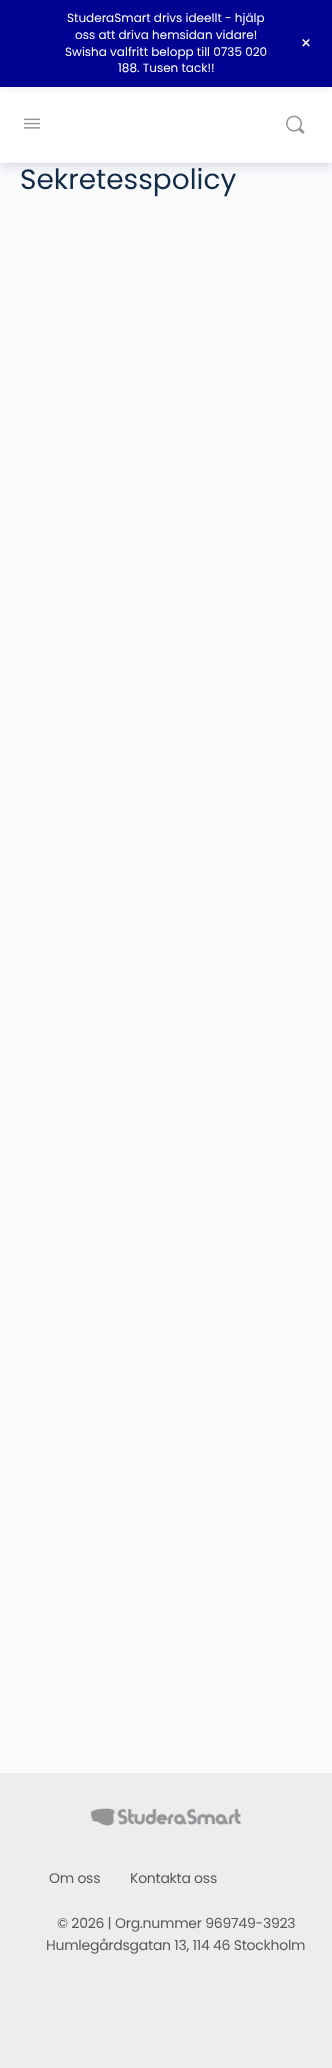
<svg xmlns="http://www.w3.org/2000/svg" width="332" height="2068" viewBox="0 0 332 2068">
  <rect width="100%" height="100%" fill="rgb(250,251,253)"/>
  <rect x="0" y="92" width="332" height="76" fill="rgba(65,71,108,0.15)" filter="blur(5px)"/>
  <rect x="0" y="87" width="332" height="76" fill="rgb(255,255,255)"/>
  <rect x="0" y="3" width="332" height="87" fill="rgba(0,0,0,0.05)" filter="blur(2px)"/>
  <rect x="0" y="0" width="332" height="87" fill="rgb(0,2,145)"/>
  <g font-family="Poppins" font-size="12" fill="rgb(255,255,255)">
    <text x="67" y="22">StuderaSmart drivs ideellt - hjälp</text>
    <text x="75" y="39">oss att driva hemsidan vidare!</text>
    <text x="65" y="56">Swisha valfritt belopp till 0735 020</text>
    <text x="118" y="72">188. Tusen tack!!</text>
  </g>
  <text x="297" y="43" transform="rotate(45 297 43)" font-family="Poppins" font-size="18" fill="rgb(255,255,255)">+</text>
  <rect x="0" y="163" width="332" height="1" fill="rgba(139,141,157,0.05)"/>
  <image x="24" y="118" width="16" height="11" href="pic1.png"/>
  <image x="286" y="115" width="19" height="19" href="pic2.png"/>
  <text x="20" y="189" font-family="Poppins" font-size="28" fill="rgb(18,43,70)">Sekretesspolicy</text>
  <rect x="0" y="1773" width="332" height="295" fill="rgb(237,237,237)"/>
  <image x="91" y="1808" width="150" height="18" href="pic3.png"/>
  <g font-family="Poppins" font-size="14" letter-spacing="-0.25" fill="rgb(90,90,90)">
    <text x="49" y="1883">Om oss</text>
    <text x="130" y="1883">Kontakta oss</text>
    <text x="57" y="1928">© 2026 | Org.nummer 969749-3923</text>
    <text x="46" y="1950">Humlegårdsgatan 13, 114 46 Stockholm</text>
  </g>
</svg>
